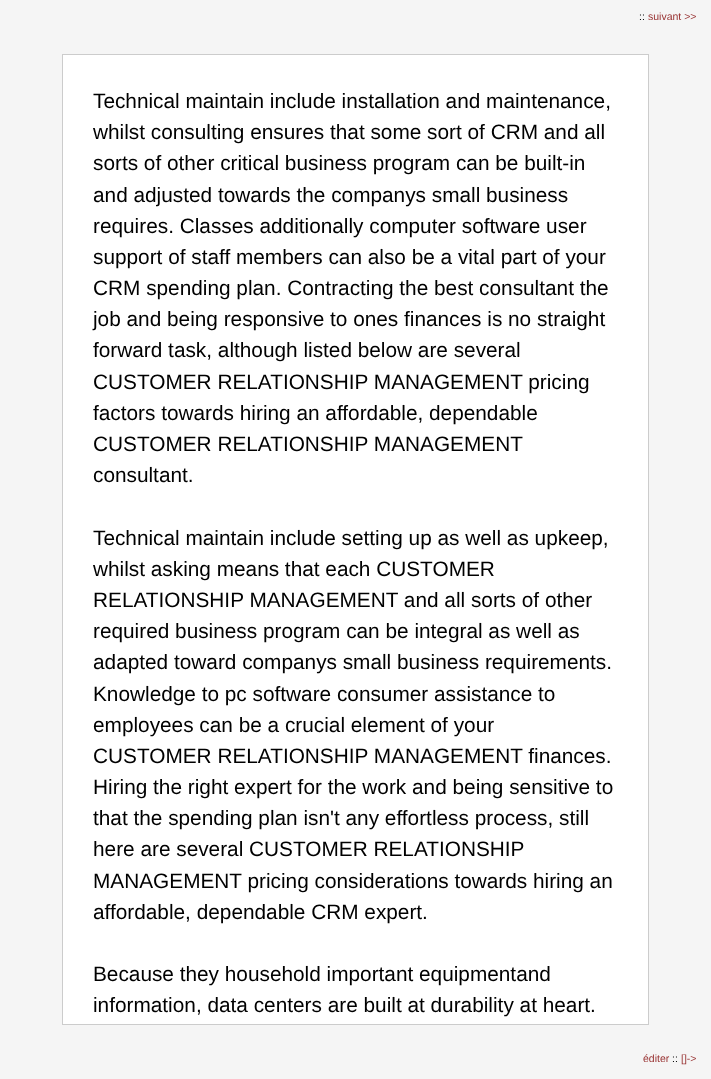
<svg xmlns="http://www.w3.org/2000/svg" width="711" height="1079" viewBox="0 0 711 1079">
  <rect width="100%" height="100%" fill="rgb(245,245,245)"/>
  <text x="639" y="20" font-family="Liberation Sans" font-size="10.5" fill="rgb(0,0,0)">::</text>
  <text x="648" y="20" font-family="Liberation Sans" font-size="10.5" fill="rgb(153,51,51)">suivant &gt;&gt;</text>
  <rect x="62.5" y="54.5" width="586" height="970" fill="rgb(255,255,255)" stroke="rgb(204,204,204)"/>
  <g font-family="Liberation Sans" font-size="20.8" fill="rgb(0,0,0)">
    <text>
      <tspan x="93" y="108">Technical maintain include installation and maintenance,</tspan>
      <tspan x="93" y="139">whilst consulting ensures that some sort of CRM and all</tspan>
      <tspan x="93" y="170">sorts of other critical business program can be built-in</tspan>
      <tspan x="93" y="202">and adjusted towards the companys small business</tspan>
      <tspan x="93" y="233">requires. Classes additionally computer software user</tspan>
      <tspan x="93" y="264">support of staff members can also be a vital part of your</tspan>
      <tspan x="93" y="295">CRM spending plan. Contracting the best consultant the</tspan>
      <tspan x="93" y="326">job and being responsive to ones finances is no straight</tspan>
      <tspan x="93" y="357">forward task, although listed below are several</tspan>
      <tspan x="93" y="389">CUSTOMER RELATIONSHIP MANAGEMENT pricing</tspan>
      <tspan x="93" y="420">factors towards hiring an affordable, dependable</tspan>
      <tspan x="93" y="451">CUSTOMER RELATIONSHIP MANAGEMENT</tspan>
      <tspan x="93" y="482">consultant.</tspan>
    </text>
    <text>
      <tspan x="93" y="545">Technical maintain include setting up as well as upkeep,</tspan>
      <tspan x="93" y="576">whilst asking means that each CUSTOMER</tspan>
      <tspan x="93" y="607">RELATIONSHIP MANAGEMENT and all sorts of other</tspan>
      <tspan x="93" y="638">required business program can be integral as well as</tspan>
      <tspan x="93" y="669">adapted toward companys small business requirements.</tspan>
      <tspan x="93" y="701">Knowledge to pc software consumer assistance to</tspan>
      <tspan x="93" y="732">employees can be a crucial element of your</tspan>
      <tspan x="93" y="763">CUSTOMER RELATIONSHIP MANAGEMENT finances.</tspan>
      <tspan x="93" y="794">Hiring the right expert for the work and being sensitive to</tspan>
      <tspan x="93" y="825">that the spending plan isn't any effortless process, still</tspan>
      <tspan x="93" y="856">here are several CUSTOMER RELATIONSHIP</tspan>
      <tspan x="93" y="888">MANAGEMENT pricing considerations towards hiring an</tspan>
      <tspan x="93" y="919">affordable, dependable CRM expert.</tspan>
    </text>
    <text>
      <tspan x="93" y="981">Because they household important equipmentand</tspan>
      <tspan x="93" y="1012">information, data centers are built at durability at heart.</tspan>
    </text>
  </g>
  <text x="643" y="1062" font-family="Liberation Sans" font-size="10.5" fill="rgb(153,51,51)">éditer</text>
  <text x="672" y="1062" font-family="Liberation Sans" font-size="10.5" fill="rgb(0,0,0)">::</text>
  <text x="681" y="1062" font-family="Liberation Sans" font-size="10.5" fill="rgb(153,51,51)">[]-&gt;</text>
</svg>
